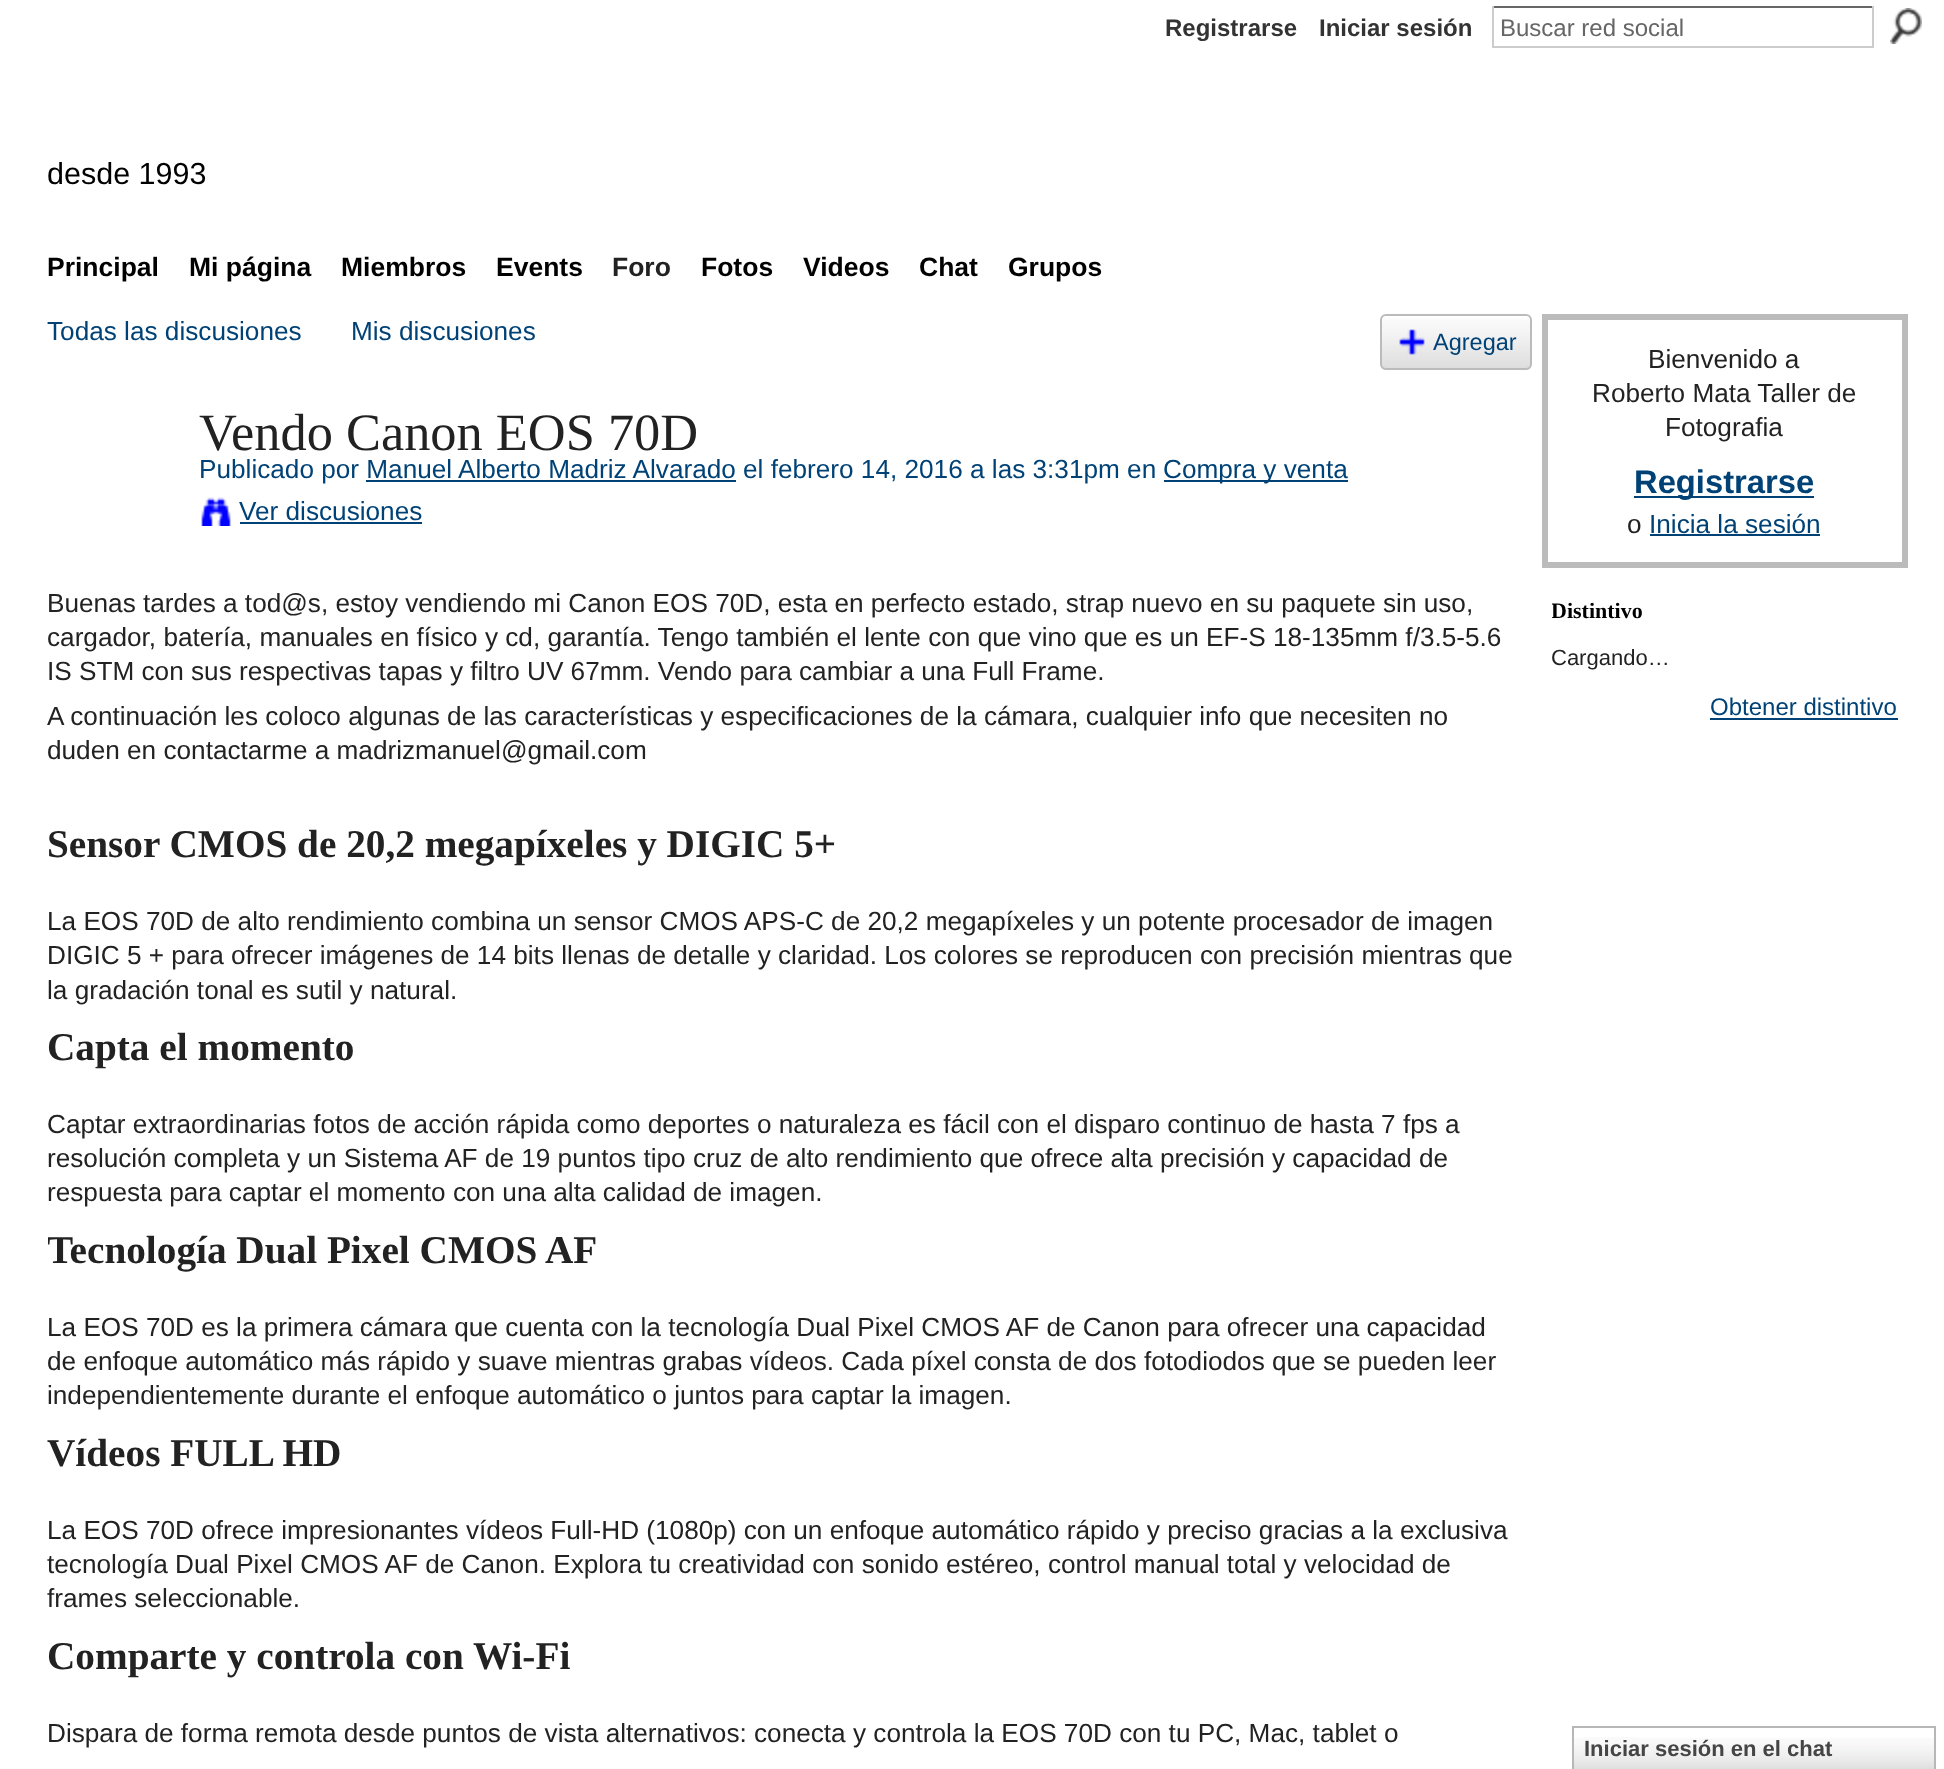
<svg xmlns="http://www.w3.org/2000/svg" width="1944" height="1769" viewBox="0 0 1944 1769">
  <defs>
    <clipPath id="clip1"><rect x="48" y="586" width="1474" height="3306"/></clipPath>
    <clipPath id="clip2"><rect x="1552" y="596" width="90" height="28"/></clipPath>
  </defs>
  <rect width="100%" height="100%" fill="rgb(255,255,255)"/>
  <g font-family="Liberation Sans" font-size="24" font-weight="bold" fill="rgb(51,51,51)">
    <text x="1165" y="36">Registrarse</text>
    <text x="1319" y="36">Iniciar sesión</text>
  </g>
  <rect x="1492" y="6" width="382" height="2" fill="rgb(102,102,102)"/>
  <rect x="1872" y="6" width="2" height="42" fill="rgb(204,204,204)"/>
  <rect x="1492" y="46" width="382" height="2" fill="rgb(204,204,204)"/>
  <rect x="1492" y="6" width="2" height="42" fill="rgb(204,204,204)"/>
  <text x="1500" y="36" font-family="Liberation Sans" font-size="24" fill="rgb(102,102,102)">Buscar red social</text>
  <image x="1890" y="8" width="32" height="36" href="pic1.png"/>
  <text x="47" y="184" font-family="Liberation Sans" font-size="30.5" fill="rgb(0,0,0)">desde 1993</text>
  <g font-family="Liberation Sans" font-size="26.5" font-weight="bold" fill="rgb(0,0,0)">
    <text x="47" y="276">Principal</text>
    <text x="189" y="276">Mi página</text>
    <text x="341" y="276">Miembros</text>
    <text x="496" y="276">Events</text>
  </g>
  <text x="612" y="276" font-family="Liberation Sans" font-size="26.5" font-weight="bold" fill="rgb(34,34,34)">Foro</text>
  <g font-family="Liberation Sans" font-size="26.5" font-weight="bold" fill="rgb(0,0,0)">
    <text x="701" y="276">Fotos</text>
    <text x="803" y="276">Videos</text>
    <text x="919" y="276">Chat</text>
    <text x="1008" y="276">Grupos</text>
  </g>
  <g font-family="Liberation Sans" font-size="26.18" fill="rgb(0,66,118)">
    <text x="47" y="340">Todas las discusiones</text>
    <text x="351" y="340">Mis discusiones</text>
  </g>
  <image x="1380" y="318" width="152" height="52" href="pic2.png"/>
  <rect x="1381" y="315" width="150" height="54" rx="5" fill="none" stroke="rgb(187,187,187)" stroke-width="2"/>
  <image x="1399" y="329" width="26" height="26" href="pic3.png"/>
  <text x="1433" y="350" font-family="Liberation Sans" font-size="23.5" fill="rgb(0,66,118)">Agregar</text>
  <text x="199" y="450" font-family="Liberation Serif" font-size="52.4" fill="rgb(34,34,34)">Vendo Canon EOS 70D</text>
  <g font-family="Liberation Sans" font-size="26.18" fill="rgb(0,66,118)">
    <text x="199" y="478">Publicado por Manuel Alberto Madriz Alvarado</text>
    <text x="743" y="478">el febrero 14, 2016 a las 3:31pm en</text>
  </g>
  <rect x="1164" y="480" width="184" height="2" fill="rgb(0,66,118)"/>
  <text x="1163" y="478" font-family="Liberation Sans" font-size="26.18" fill="rgb(0,66,118)">Compra y venta</text>
  <rect x="366" y="480" width="370" height="2" fill="rgb(0,66,118)"/>
  <image x="201" y="497" width="30" height="29" href="pic4.png"/>
  <text x="239" y="520" font-family="Liberation Sans" font-size="26.18" fill="rgb(0,66,118)">Ver discusiones</text>
  <rect x="240" y="522" width="182" height="2" fill="rgb(0,66,118)"/>
  <g font-family="Liberation Sans" font-size="26.18" fill="rgb(34,34,34)">
    <text>
      <tspan x="47" y="612">Buenas tardes a tod@s, estoy vendiendo mi Canon EOS 70D, esta en perfecto estado, strap nuevo en su paquete sin uso,</tspan>
      <tspan x="47" y="646">cargador, batería, manuales en físico y cd, garantía. Tengo también el lente con que vino que es un EF-S 18-135mm f/3.5-5.6</tspan>
      <tspan x="47" y="680">IS STM con sus respectivas tapas y filtro UV 67mm. Vendo para cambiar a una Full Frame.</tspan>
      <tspan x="47" y="725">A continuación les coloco algunas de las características y especificaciones de la cámara, cualquier info que necesiten no</tspan>
      <tspan x="47" y="759">duden en contactarme a madrizmanuel@gmail.com</tspan>
    </text>
  </g>
  <text x="47" y="857" font-family="Liberation Serif" font-size="39.25" font-weight="bold" fill="rgb(34,34,34)">Sensor CMOS de 20,2 megapíxeles y DIGIC 5+</text>
  <g font-family="Liberation Sans" font-size="26.18" fill="rgb(34,34,34)">
    <text>
      <tspan x="47" y="930">La EOS 70D de alto rendimiento combina un sensor CMOS APS-C de 20,2 megapíxeles y un potente procesador de imagen</tspan>
      <tspan x="47" y="964">DIGIC 5 + para ofrecer imágenes de 14 bits llenas de detalle y claridad. Los colores se reproducen con precisión mientras que</tspan>
      <tspan x="47" y="999">la gradación tonal es sutil y natural.</tspan>
    </text>
  </g>
  <text x="47" y="1060" font-family="Liberation Serif" font-size="39.25" font-weight="bold" fill="rgb(34,34,34)">Capta el momento</text>
  <g font-family="Liberation Sans" font-size="26.18" fill="rgb(34,34,34)">
    <text>
      <tspan x="47" y="1133">Captar extraordinarias fotos de acción rápida como deportes o naturaleza es fácil con el disparo continuo de hasta 7 fps a</tspan>
      <tspan x="47" y="1167">resolución completa y un Sistema AF de 19 puntos tipo cruz de alto rendimiento que ofrece alta precisión y capacidad de</tspan>
      <tspan x="47" y="1201">respuesta para captar el momento con una alta calidad de imagen.</tspan>
    </text>
  </g>
  <g clip-path="url(#clip1)">
    <text x="47" y="1263" font-family="Liberation Serif" font-size="39.25" font-weight="bold" fill="rgb(34,34,34)">Tecnología Dual Pixel CMOS AF</text>
  </g>
  <g font-family="Liberation Sans" font-size="26.18" fill="rgb(34,34,34)">
    <text>
      <tspan x="47" y="1336">La EOS 70D es la primera cámara que cuenta con la tecnología Dual Pixel CMOS AF de Canon para ofrecer una capacidad</tspan>
      <tspan x="47" y="1370">de enfoque automático más rápido y suave mientras grabas vídeos. Cada píxel consta de dos fotodiodos que se pueden leer</tspan>
      <tspan x="47" y="1404">independientemente durante el enfoque automático o juntos para captar la imagen.</tspan>
    </text>
  </g>
  <text x="47" y="1466" font-family="Liberation Serif" font-size="39.25" font-weight="bold" fill="rgb(34,34,34)">Vídeos FULL HD</text>
  <g font-family="Liberation Sans" font-size="26.18" fill="rgb(34,34,34)">
    <text>
      <tspan x="47" y="1539">La EOS 70D ofrece impresionantes vídeos Full-HD (1080p) con un enfoque automático rápido y preciso gracias a la exclusiva</tspan>
      <tspan x="47" y="1573">tecnología Dual Pixel CMOS AF de Canon. Explora tu creatividad con sonido estéreo, control manual total y velocidad de</tspan>
      <tspan x="47" y="1607">frames seleccionable.</tspan>
    </text>
  </g>
  <text x="47" y="1669" font-family="Liberation Serif" font-size="39.25" font-weight="bold" fill="rgb(34,34,34)">Comparte y controla con Wi-Fi</text>
  <text x="47" y="1742" font-family="Liberation Sans" font-size="26.18" fill="rgb(34,34,34)">Dispara de forma remota desde puntos de vista alternativos: conecta y controla la EOS 70D con tu PC, Mac, tablet o</text>
  <rect x="1545" y="317" width="360" height="248" fill="none" stroke="rgb(187,187,187)" stroke-width="6"/>
  <g font-family="Liberation Sans" font-size="26.18" fill="rgb(34,34,34)">
    <text x="1648" y="368">Bienvenido a</text>
    <text x="1592" y="402">Roberto Mata Taller de</text>
    <text x="1665" y="436">Fotografia</text>
  </g>
  <rect x="1634" y="496" width="180" height="2" fill="rgb(0,66,118)"/>
  <text x="1634" y="493" font-family="Liberation Sans" font-size="32.75" font-weight="bold" fill="rgb(0,66,118)">Registrarse</text>
  <text x="1627" y="533" font-family="Liberation Sans" font-size="26.18" fill="rgb(34,34,34)">o</text>
  <text x="1649" y="533" font-family="Liberation Sans" font-size="26.18" fill="rgb(0,66,118)">Inicia la sesión</text>
  <rect x="1650" y="534" width="170" height="2" fill="rgb(0,66,118)"/>
  <g clip-path="url(#clip2)">
    <text x="1551" y="618" font-family="Liberation Serif" font-size="22" font-weight="bold" fill="rgb(0,0,0)">Distintivo</text>
  </g>
  <text x="1551" y="665" font-family="Liberation Sans" font-size="22" fill="rgb(34,34,34)">Cargando…</text>
  <text x="1710" y="715" font-family="Liberation Sans" font-size="24" fill="rgb(0,66,118)">Obtener distintivo</text>
  <rect x="1710" y="718" width="188" height="2" fill="rgb(0,66,118)"/>
  <image x="1574" y="1738" width="360" height="31" href="pic5.png"/>
  <rect x="1573" y="1727" width="362" height="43" fill="none" stroke="rgb(183,183,183)" stroke-width="2"/>
  <rect x="1584" y="1737" width="54" height="1" fill="rgb(250,250,250)"/>
  <text x="1584" y="1756" font-family="Liberation Sans" font-size="22" font-weight="bold" fill="rgb(69,69,69)">Iniciar sesión en el chat</text>
</svg>
